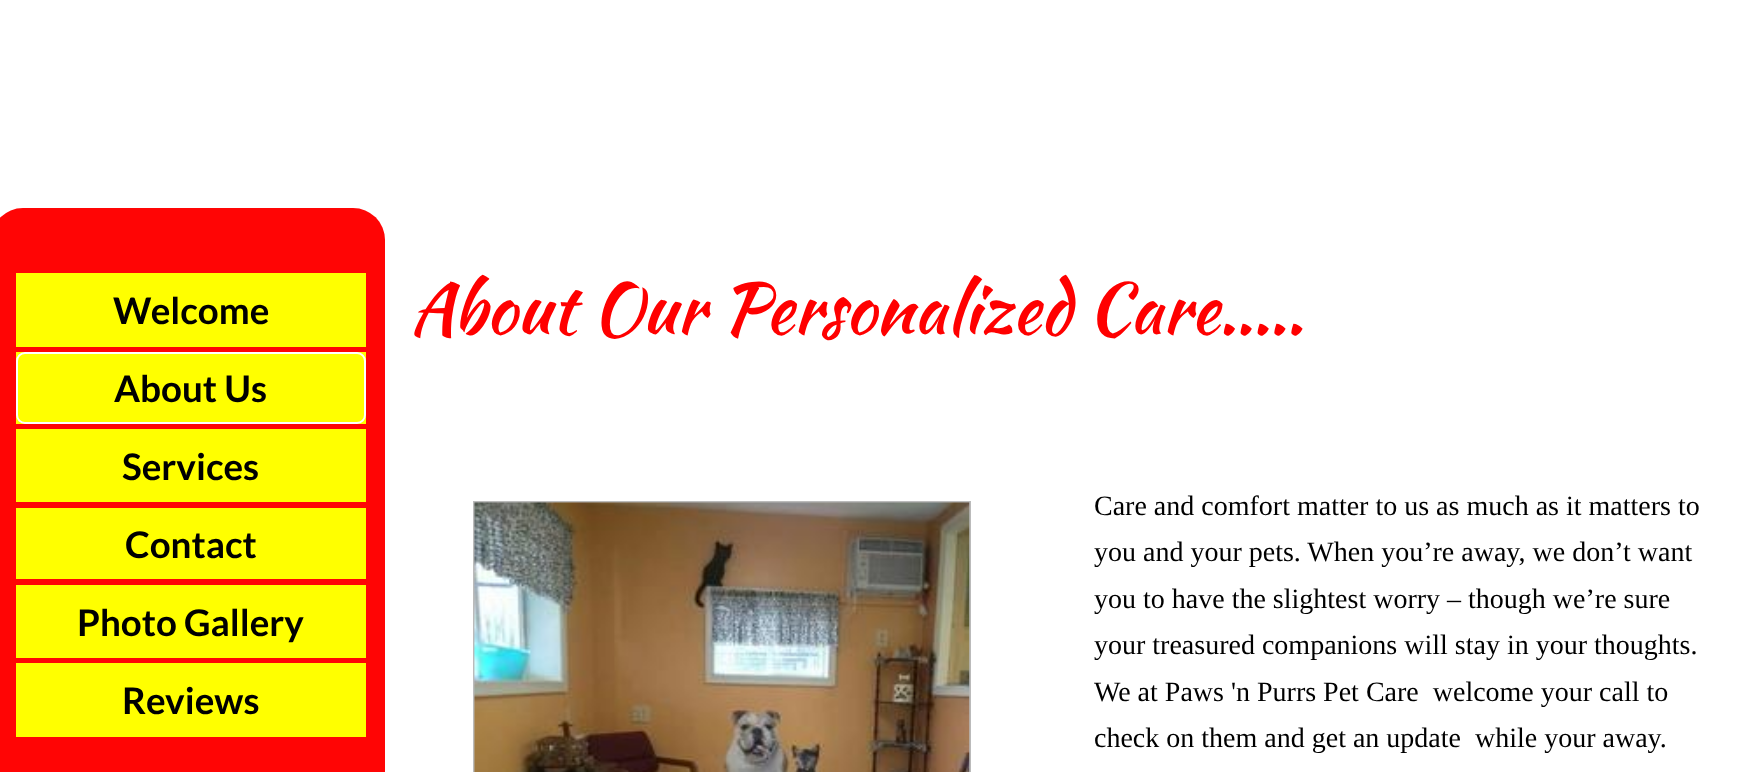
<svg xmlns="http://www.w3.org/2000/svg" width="1747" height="772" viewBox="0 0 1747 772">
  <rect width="100%" height="100%" fill="rgb(255,255,255)"/>
  <rect x="-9" y="208" width="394" height="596" rx="32" fill="rgb(255,5,5)"/>
  <text x="410" y="333" font-family="Kaushan Script" font-size="70" fill="rgb(255,0,0)">About Our Personalized Care.....</text>
  <rect x="16" y="273" width="350" height="74" fill="rgb(255,255,0)"/>
  <text x="113" y="324" font-family="Lato" font-size="36.75" font-weight="bold" fill="rgb(0,0,0)">Welcome</text>
  <rect x="16" y="352" width="350" height="72" fill="rgb(255,255,0)"/>
  <rect x="17" y="353" width="348" height="70" rx="8" fill="none" stroke="rgb(255,255,255)" stroke-width="2"/>
  <text x="114" y="402" font-family="Lato" font-size="36.75" font-weight="bold" fill="rgb(0,0,0)">About Us</text>
  <rect x="16" y="429" width="350" height="73" fill="rgb(255,255,0)"/>
  <text x="122" y="480" font-family="Lato" font-size="36.75" font-weight="bold" fill="rgb(0,0,0)">Services</text>
  <rect x="16" y="508" width="350" height="71" fill="rgb(255,255,0)"/>
  <text x="125" y="558" font-family="Lato" font-size="36.75" font-weight="bold" fill="rgb(0,0,0)">Contact</text>
  <rect x="16" y="585" width="350" height="73" fill="rgb(255,255,0)"/>
  <text x="77" y="636" font-family="Lato" font-size="36.75" font-weight="bold" fill="rgb(0,0,0)">Photo Gallery</text>
  <rect x="16" y="663" width="350" height="74" fill="rgb(255,255,0)"/>
  <text x="122" y="714" font-family="Lato" font-size="36.75" font-weight="bold" fill="rgb(0,0,0)">Reviews</text>
  <rect x="474" y="502" width="496" height="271" fill="none" stroke="rgb(187,187,187)" stroke-width="2"/>
  <image x="474" y="502" width="496" height="270" href="pic1.png"/>
  <g font-family="Liberation Serif" font-size="28" fill="rgb(0,0,0)">
    <text xml:space="preserve"><tspan x="1094" y="515">Care and comfort matter to us as much as it matters to</tspan><tspan x="1094" y="561">you and your pets. When you’re away, we don’t want</tspan><tspan x="1094" y="608">you to have the slightest worry – though we’re sure</tspan><tspan x="1094" y="654">your treasured companions will stay in your thoughts.</tspan><tspan x="1094" y="701">We at Paws 'n Purrs Pet Care  welcome your call to</tspan><tspan x="1094" y="747">check on them and get an update  while your away.</tspan></text>
  </g>
</svg>
